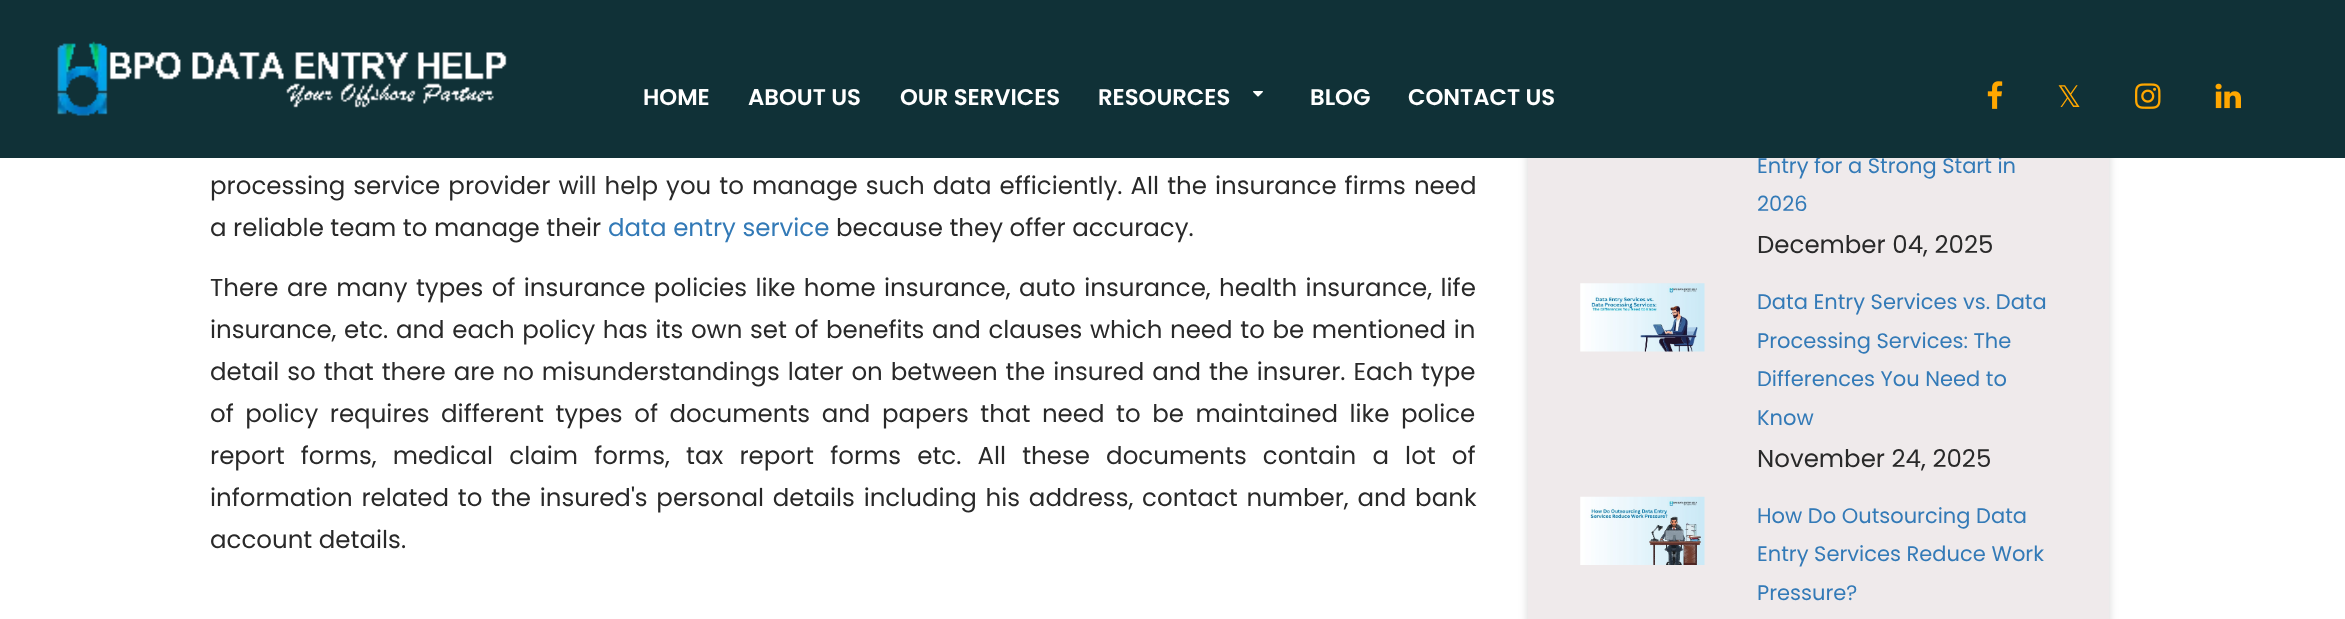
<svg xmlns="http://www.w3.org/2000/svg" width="2345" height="619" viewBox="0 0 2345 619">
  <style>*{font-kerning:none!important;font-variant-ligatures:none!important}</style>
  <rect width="100%" height="100%" fill="rgb(255,255,255)"/>
  <rect x="1528" y="-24" width="581" height="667" rx="9" fill="rgba(0,0,0,0.17)" filter="blur(5px)"/>
  <rect x="1528" y="158" width="581" height="461" fill="rgb(239,234,235)"/>
  <text x="1757" y="173" font-family="Poppins" font-size="21" fill="rgb(51,122,183)">Entry for a Strong Start in</text>
  <rect x="0" y="0" width="2345" height="158" fill="rgb(16,49,55)"/>
  <image x="57" y="41" width="450" height="75" href="pic1.png"/>
  <g font-family="Poppins" font-size="22.75" font-weight="600" fill="rgb(255,255,255)">
    <text x="643" y="105">HOME</text>
    <text x="748" y="105">ABOUT US</text>
    <text x="900" y="105">OUR SERVICES</text>
    <text x="1098" y="105">RESOURCES</text>
  </g>
  <image x="1253" y="91" width="10" height="6" href="pic2.png"/>
  <g font-family="Poppins" font-size="22.75" font-weight="600" fill="rgb(255,255,255)">
    <text x="1310" y="105">BLOG</text>
    <text x="1408" y="105">CONTACT US</text>
  </g>
  <image x="1987" y="81" width="16" height="28" href="pic3.png"/>
  <text x="2057" y="107" font-family="DejaVu Sans" font-size="30" fill="rgb(255,167,0)">𝕏</text>
  <image x="2135" y="83" width="26" height="26" href="pic4.png"/>
  <image x="2215" y="83" width="26" height="26" href="pic5.png"/>
  <g font-family="Poppins" font-size="24.5" fill="rgb(41,41,41)">
    <text>
      <tspan x="210" y="194" word-spacing="1.5">processing service provider will help you to manage such data efficiently. All the insurance firms need</tspan>
      <tspan x="210" y="236">a reliable team to manage their</tspan>
    </text>
  </g>
  <text x="608" y="236" font-family="Poppins" font-size="24.5" fill="rgb(51,122,183)">data entry service</text>
  <g font-family="Poppins" font-size="24.5" fill="rgb(41,41,41)">
    <text x="836" y="236">because they offer accuracy.</text>
    <text>
      <tspan x="210" y="296" word-spacing="1.9">There are many types of insurance policies like home insurance, auto insurance, health insurance, life</tspan>
      <tspan x="210" y="338" word-spacing="1.1">insurance, etc. and each policy has its own set of benefits and clauses which need to be mentioned in</tspan>
      <tspan x="210" y="380" word-spacing="1.4">detail so that there are no misunderstandings later on between the insured and the insurer. Each type</tspan>
      <tspan x="210" y="422" word-spacing="5">of policy requires different types of documents and papers that need to be maintained like police</tspan>
      <tspan x="210" y="464" word-spacing="9.6">report forms, medical claim forms, tax report forms etc. All these documents contain a lot of</tspan>
      <tspan x="210" y="506" word-spacing="2.25">information related to the insured's personal details including his address, contact number, and bank</tspan>
      <tspan x="210" y="548">account details.</tspan>
    </text>
  </g>
  <text x="1757" y="211" font-family="Poppins" font-size="21" fill="rgb(51,122,183)">2026</text>
  <text x="1757" y="253" font-family="Poppins" font-size="24.5" fill="rgb(41,41,41)">December 04, 2025</text>
  <image x="1580" y="283" width="125" height="69" href="pic6.png"/>
  <g font-family="Poppins" font-size="21" fill="rgb(51,122,183)">
    <text>
      <tspan x="1757" y="309">Data Entry Services vs. Data</tspan>
      <tspan x="1757" y="348">Processing Services: The</tspan>
      <tspan x="1757" y="386">Differences You Need to</tspan>
      <tspan x="1757" y="425">Know</tspan>
    </text>
  </g>
  <text x="1757" y="467" font-family="Poppins" font-size="24.5" fill="rgb(41,41,41)">November 24, 2025</text>
  <image x="1580" y="496" width="125" height="69" href="pic7.png"/>
  <g font-family="Poppins" font-size="21" fill="rgb(51,122,183)">
    <text>
      <tspan x="1757" y="523">How Do Outsourcing Data</tspan>
      <tspan x="1757" y="561">Entry Services Reduce Work</tspan>
      <tspan x="1757" y="600">Pressure?</tspan>
    </text>
  </g>
</svg>
